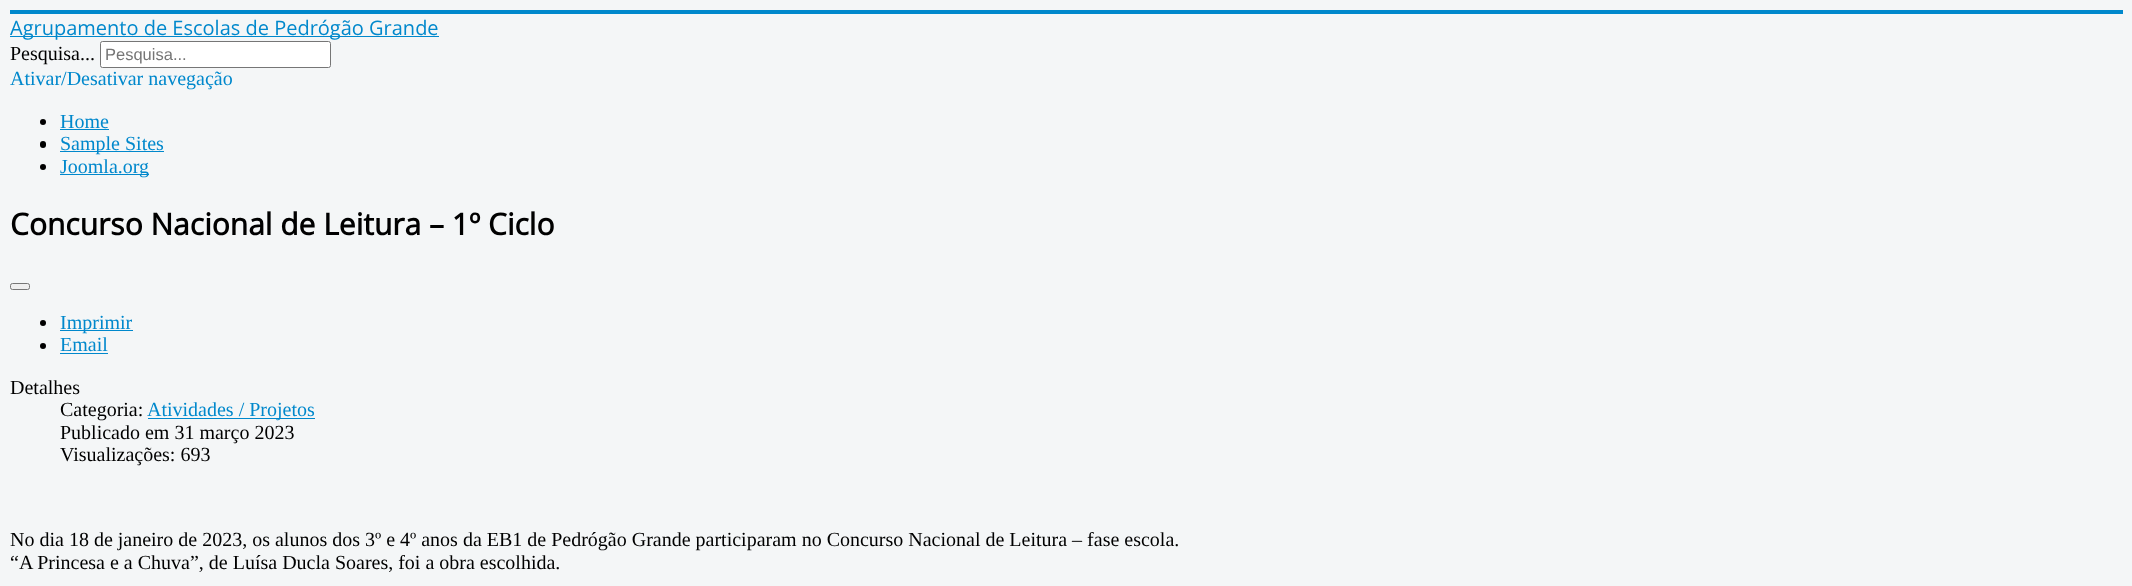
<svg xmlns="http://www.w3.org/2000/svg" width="2132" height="586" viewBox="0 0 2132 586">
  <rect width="100%" height="100%" fill="rgb(244,246,247)"/>
  <rect x="10" y="10" width="2113" height="4" fill="rgb(0,136,204)"/>
  <rect x="10" y="36" width="429" height="1" fill="rgb(0,136,204)"/>
  <text x="10" y="35" font-family="Open Sans" font-size="20" fill="rgb(0,136,204)">Agrupamento de Escolas de Pedrógão Grande</text>
  <text x="10" y="60" font-family="Liberation Serif" font-size="20" fill="rgb(0,0,0)">Pesquisa...</text>
  <rect x="100.5" y="41.5" width="230" height="26" rx="2" fill="rgb(255,255,255)" stroke="rgb(118,118,118)"/>
  <text x="105" y="60" font-family="Liberation Sans" font-size="16.5" fill="rgb(117,117,117)">Pesquisa...</text>
  <text x="10" y="85" font-family="Liberation Serif" font-size="20" fill="rgb(0,136,204)">Ativar/Desativar navegação</text>
  <circle cx="43" cy="122" r="3" fill="rgb(0,0,0)"/>
  <text x="60" y="128" font-family="Liberation Serif" font-size="20" fill="rgb(0,136,204)">Home</text>
  <rect x="60" y="129" width="49" height="1" fill="rgb(0,136,204)"/>
  <rect x="40" y="141" width="6" height="7" rx="3" fill="rgb(0,0,0)"/>
  <rect x="60" y="151" width="104" height="1" fill="rgb(0,136,204)"/>
  <text x="60" y="150" font-family="Liberation Serif" font-size="20" fill="rgb(0,136,204)">Sample Sites</text>
  <circle cx="43" cy="167" r="3" fill="rgb(0,0,0)"/>
  <rect x="60" y="174" width="89" height="1" fill="rgb(0,136,204)"/>
  <text x="60" y="173" font-family="Liberation Serif" font-size="20" fill="rgb(0,136,204)">Joomla.org</text>
  <text x="10" y="235" font-family="Open Sans" font-size="30" font-weight="bold" fill="rgb(0,0,0)">Concurso Nacional de Leitura – 1º Ciclo</text>
  <rect x="10.5" y="283.5" width="19" height="6" rx="2" fill="rgb(239,239,239)" stroke="rgb(118,118,118)"/>
  <circle cx="43" cy="323" r="3" fill="rgb(0,0,0)"/>
  <rect x="60" y="330" width="73" height="1" fill="rgb(0,136,204)"/>
  <text x="60" y="329" font-family="Liberation Serif" font-size="20" fill="rgb(0,136,204)">Imprimir</text>
  <circle cx="43" cy="346" r="3" fill="rgb(0,0,0)"/>
  <text x="60" y="351" font-family="Liberation Serif" font-size="20" fill="rgb(0,136,204)">Email</text>
  <rect x="60" y="353" width="48" height="1" fill="rgb(0,136,204)"/>
  <g font-family="Liberation Serif" font-size="20" fill="rgb(0,0,0)">
    <text x="10" y="394">Detalhes</text>
    <text x="60" y="416">Categoria:</text>
  </g>
  <rect x="148" y="418" width="167" height="1" fill="rgb(0,136,204)"/>
  <text x="147" y="416" font-family="Liberation Serif" font-size="20" fill="rgb(0,136,204)">Atividades / Projetos</text>
  <g font-family="Liberation Serif" font-size="20" fill="rgb(0,0,0)">
    <text>
      <tspan x="60" y="439">Publicado em 31 março 2023</tspan>
      <tspan x="60" y="461">Visualizações: 693</tspan>
    </text>
    <text>
      <tspan x="10" y="546">No dia 18 de janeiro de 2023, os alunos dos 3º e 4º anos da EB1 de Pedrógão Grande participaram no Concurso Nacional de Leitura – fase escola.</tspan>
      <tspan x="10" y="569">“A Princesa e a Chuva”, de Luísa Ducla Soares, foi a obra escolhida.</tspan>
    </text>
  </g>
</svg>
